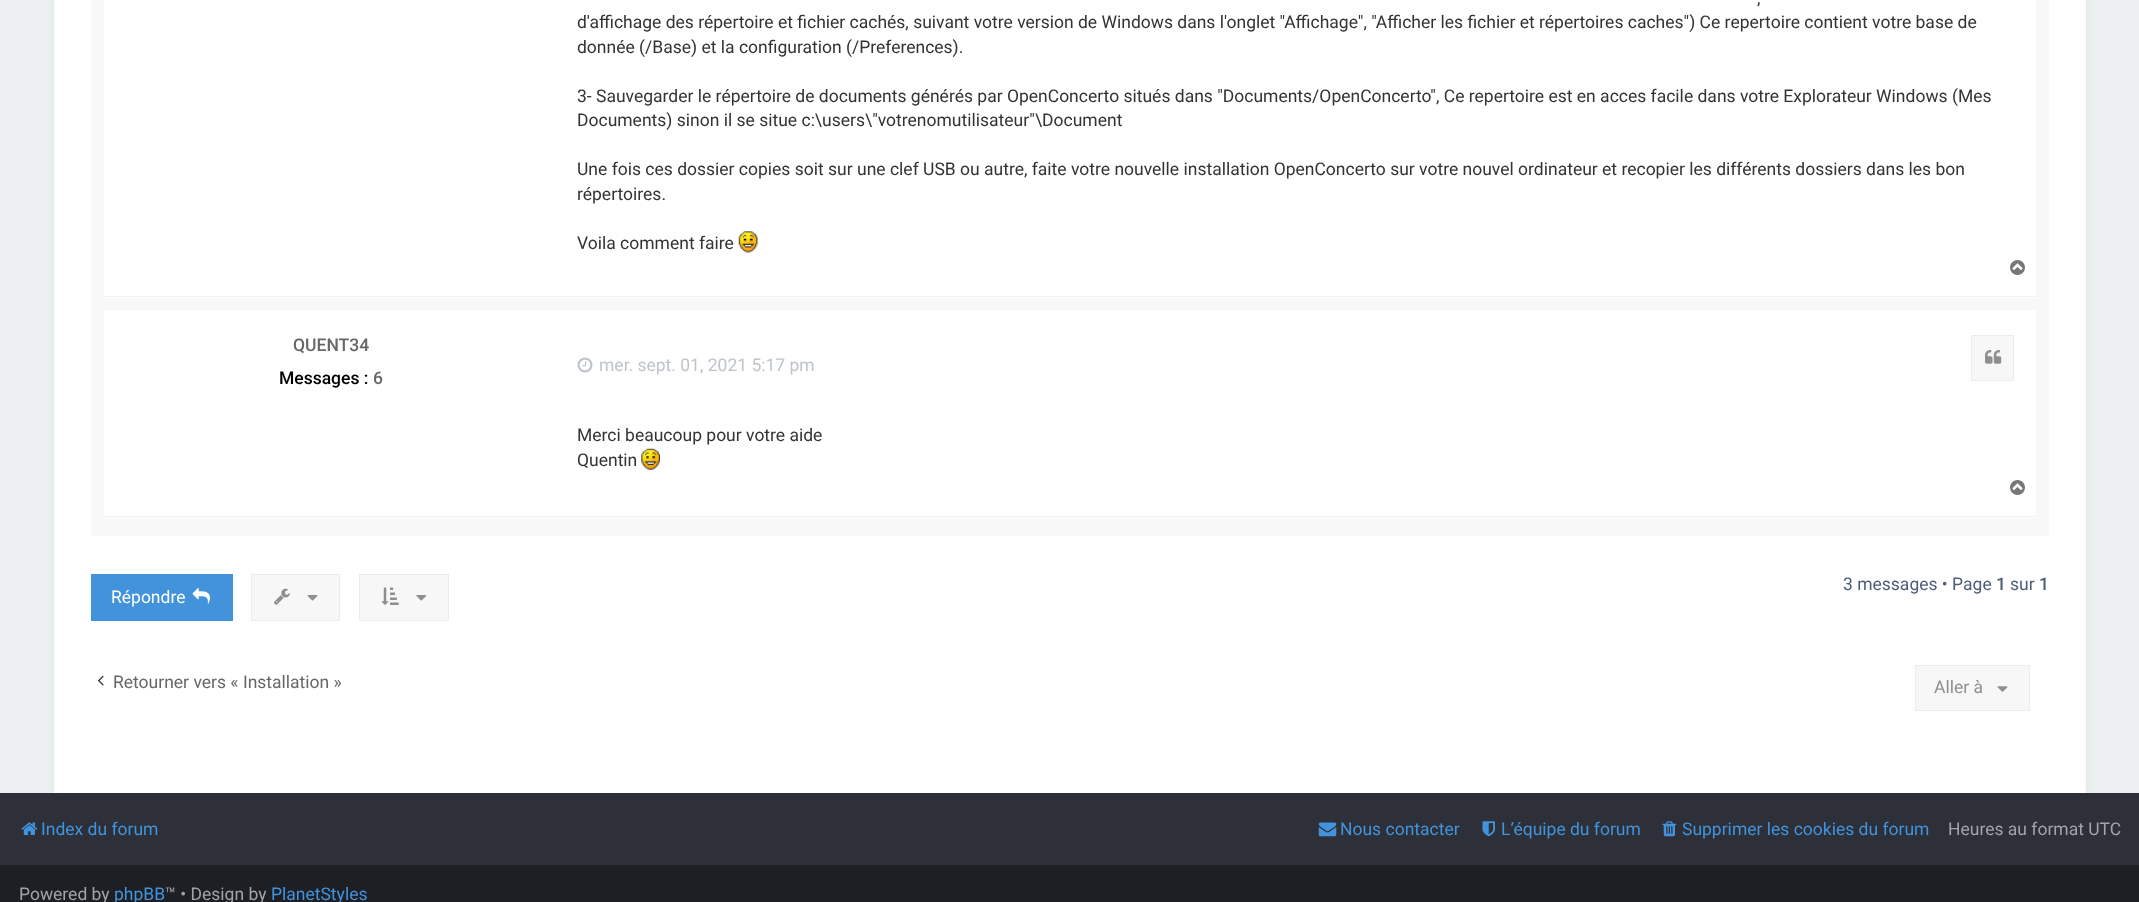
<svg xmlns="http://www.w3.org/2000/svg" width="2139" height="902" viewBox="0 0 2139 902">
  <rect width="100%" height="100%" fill="rgb(236,240,241)"/>
  <rect x="0" y="793" width="2139" height="72" fill="rgb(45,48,57)"/>
  <rect x="54" y="-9" width="2032" height="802" fill="rgba(0,0,0,0.05)" filter="blur(3px)"/>
  <rect x="54" y="0" width="2032" height="793" fill="rgb(255,255,255)"/>
  <rect x="91" y="0" width="1958" height="536" fill="rgb(248,248,248)"/>
  <rect x="104" y="0" width="1932" height="298" fill="rgb(255,255,255)"/>
  <rect x="104" y="296" width="1932" height="1" fill="rgb(236,240,241)"/>
  <g font-family="Roboto" font-size="17.5" fill="rgb(51,51,51)">
    <text x="1757" y="4">,</text>
    <text>
      <tspan x="577" y="28">d'affichage des répertoire et fichier cachés, suivant votre version de Windows dans l'onglet "Affichage", "Afficher les fichier et répertoires caches") Ce repertoire contient votre base de</tspan>
      <tspan x="577" y="53">donnée (/Base) et la configuration (/Preferences).</tspan>
    </text>
    <text>
      <tspan x="577" y="102">3- Sauvegarder le répertoire de documents générés par OpenConcerto situés dans "Documents/OpenConcerto", Ce repertoire est en acces facile dans votre Explorateur Windows (Mes</tspan>
      <tspan x="577" y="126">Documents) sinon il se situe c:\users\"votrenomutilisateur"\Document</tspan>
    </text>
    <text>
      <tspan x="577" y="175">Une fois ces dossier copies soit sur une clef USB ou autre, faite votre nouvelle installation OpenConcerto sur votre nouvel ordinateur et recopier les différents dossiers dans les bon</tspan>
      <tspan x="577" y="200">répertoires.</tspan>
    </text>
    <text x="577" y="249">Voila comment faire</text>
  </g>
  <image x="738" y="231" width="20" height="22" href="pic1.png"/>
  <image x="2010" y="260" width="15" height="15" href="pic2.png"/>
  <rect x="104" y="310" width="1932" height="208" fill="rgb(255,255,255)"/>
  <rect x="104" y="516" width="1932" height="1" fill="rgb(236,240,241)"/>
  <text x="293" y="351" font-family="Roboto" font-size="17.5" font-weight="500" fill="rgb(103,103,103)">QUENT34</text>
  <text x="279" y="384" font-family="Roboto" font-size="17.5" font-weight="500" fill="rgb(0,0,0)">Messages :</text>
  <text x="373" y="384" font-family="Roboto" font-size="17.5" font-weight="500" fill="rgb(103,103,103)">6</text>
  <image x="577" y="357" width="16" height="16" href="pic3.png"/>
  <text x="599" y="371" font-family="Roboto" font-size="17.5" fill="rgb(190,196,201)">mer. sept. 01, 2021 5:17 pm</text>
  <rect x="1971.5" y="335.5" width="42" height="45" fill="rgb(247,247,247)" stroke="rgb(237,236,236)"/>
  <image x="1985" y="350" width="17" height="14" href="pic4.png"/>
  <g font-family="Roboto" font-size="17.5" fill="rgb(51,51,51)">
    <text>
      <tspan x="577" y="441">Merci beaucoup pour votre aide</tspan>
      <tspan x="577" y="466">Quentin</tspan>
    </text>
  </g>
  <image x="641" y="448" width="19" height="22" href="pic5.png"/>
  <image x="2010" y="480" width="15" height="15" href="pic2.png"/>
  <rect x="251.5" y="574.5" width="88" height="46" fill="rgb(247,247,247)" stroke="rgb(237,236,236)"/>
  <image x="274" y="588" width="16" height="17" href="pic6.png"/>
  <image x="307" y="595" width="11" height="6" href="pic7.png"/>
  <rect x="359.5" y="574.5" width="89" height="46" fill="rgb(247,247,247)" stroke="rgb(237,236,236)"/>
  <image x="381" y="587" width="18" height="18" href="pic8.png"/>
  <image x="416" y="595" width="11" height="6" href="pic9.png"/>
  <text x="1843" y="590" font-family="Roboto" font-size="17.5" fill="rgb(76,93,119)">3 messages • Page</text>
  <text x="1996" y="590" font-family="Roboto" font-size="17.5" font-weight="500" fill="rgb(76,93,119)">1</text>
  <text x="2010" y="590" font-family="Roboto" font-size="17.5" fill="rgb(76,93,119)">sur</text>
  <text x="2039" y="590" font-family="Roboto" font-size="17.5" font-weight="500" fill="rgb(76,93,119)">1</text>
  <rect x="91" y="574" width="142" height="47" fill="rgb(66,147,220)"/>
  <text x="111" y="603" font-family="Roboto" font-size="17.5" fill="rgb(255,255,255)">Répondre</text>
  <image x="192" y="588" width="18" height="16" href="pic10.png"/>
  <image x="98" y="675" width="6" height="11" href="pic11.png"/>
  <text x="113" y="688" font-family="Roboto" font-size="17.5" fill="rgb(103,103,103)">Retourner vers « Installation »</text>
  <rect x="1915.5" y="665.5" width="114" height="45" fill="rgb(247,247,247)" stroke="rgb(237,236,236)"/>
  <text x="1934" y="693" font-family="Roboto" font-size="17.5" fill="rgb(143,143,143)">Aller à</text>
  <image x="1997" y="686" width="11" height="6" href="pic12.png"/>
  <image x="21" y="822" width="17" height="13" href="pic13.png"/>
  <text x="41" y="835" font-family="Roboto" font-size="17.5" fill="rgb(66,147,220)">Index du forum</text>
  <image x="1318" y="822" width="19" height="15" href="pic14.png"/>
  <text x="1340" y="835" font-family="Roboto" font-size="17.5" fill="rgb(66,147,220)">Nous contacter</text>
  <image x="1482" y="821" width="13" height="16" href="pic15.png"/>
  <text x="1501" y="835" font-family="Roboto" font-size="17.5" fill="rgb(66,147,220)">L’équipe du forum</text>
  <image x="1662" y="821" width="15" height="16" href="pic16.png"/>
  <text x="1682" y="835" font-family="Roboto" font-size="17.5" fill="rgb(66,147,220)">Supprimer les cookies du forum</text>
  <text x="1948" y="835" font-family="Roboto" font-size="17.5" fill="rgb(164,164,167)">Heures au format UTC</text>
  <rect x="0" y="865" width="2139" height="37" fill="rgb(29,31,37)"/>
  <text x="19" y="900" font-family="Roboto" font-size="17.5" fill="rgb(164,164,167)">Powered by</text>
  <text x="114" y="900" font-family="Roboto" font-size="17.5" fill="rgb(66,147,220)">phpBB</text>
  <text x="165" y="900" font-family="Roboto" font-size="17.5" fill="rgb(164,164,167)">™ • Design by</text>
  <text x="271" y="900" font-family="Roboto" font-size="17.5" fill="rgb(66,147,220)">PlanetStyles</text>
</svg>
